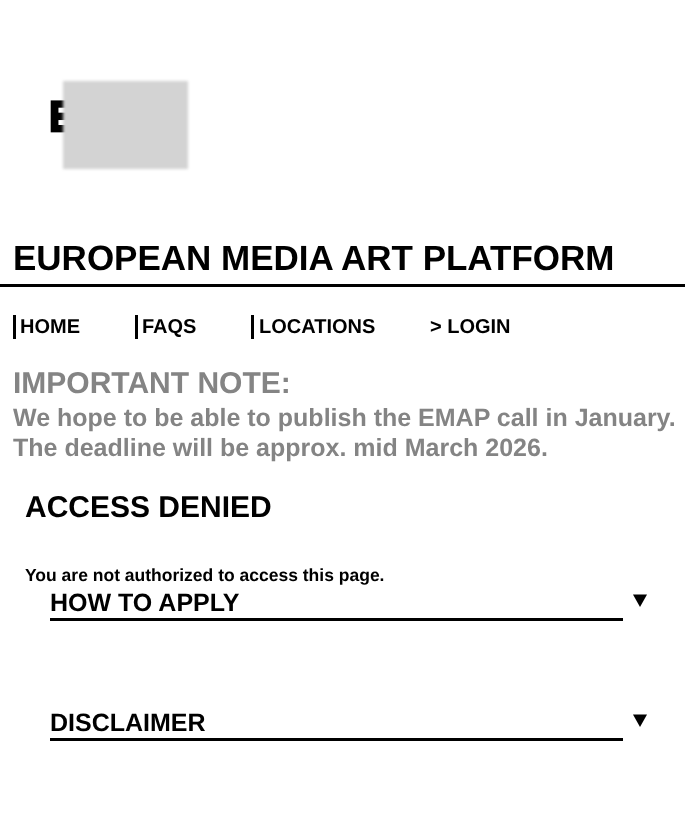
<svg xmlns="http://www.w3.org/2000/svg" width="685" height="819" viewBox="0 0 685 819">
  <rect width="100%" height="100%" fill="rgb(255,255,255)"/>
  <image x="50" y="100" width="19" height="33" href="pic1.png"/>
  <rect x="63" y="81" width="125" height="88" fill="rgb(211,211,211)" filter="blur(1.5px)"/>
  <rect x="0" y="284" width="685" height="3" fill="rgb(0,0,0)"/>
  <text x="13" y="270" font-family="Liberation Sans" font-size="35" font-weight="bold" fill="rgb(0,0,0)">EUROPEAN MEDIA ART PLATFORM</text>
  <rect x="13" y="315" width="3" height="24" fill="rgb(0,0,0)"/>
  <text x="20" y="333" font-family="Liberation Sans" font-size="20" font-weight="bold" fill="rgb(0,0,0)">HOME</text>
  <rect x="135" y="315" width="3" height="24" fill="rgb(0,0,0)"/>
  <text x="142" y="333" font-family="Liberation Sans" font-size="20" font-weight="bold" fill="rgb(0,0,0)">FAQS</text>
  <rect x="251" y="315" width="3" height="24" fill="rgb(0,0,0)"/>
  <g font-family="Liberation Sans" font-size="20" font-weight="bold" fill="rgb(0,0,0)">
    <text x="259" y="333">LOCATIONS</text>
    <text x="430" y="333">&gt; LOGIN</text>
  </g>
  <text x="13" y="393" font-family="Liberation Sans" font-size="30" font-weight="bold" fill="rgb(132,132,132)">IMPORTANT NOTE:</text>
  <g font-family="Liberation Sans" font-size="25" font-weight="bold" fill="rgb(132,132,132)">
    <text>
      <tspan x="13" y="426">We hope to be able to publish the EMAP call in January.</tspan>
      <tspan x="13" y="456">The deadline will be approx. mid March 2026.</tspan>
    </text>
  </g>
  <text x="25" y="517" font-family="Liberation Sans" font-size="30" font-weight="bold" fill="rgb(0,0,0)">ACCESS DENIED</text>
  <text x="25" y="581" font-family="Liberation Sans" font-size="17.5" font-weight="bold" fill="rgb(0,0,0)">You are not authorized to access this page.</text>
  <rect x="50" y="618" width="573" height="3" fill="rgb(0,0,0)"/>
  <text x="50" y="611" font-family="Liberation Sans" font-size="25" font-weight="bold" fill="rgb(0,0,0)">HOW TO APPLY</text>
  <path d="M633 594.5L640 607L647 594.5Z" fill="rgb(0,0,0)"/>
  <rect x="50" y="738" width="573" height="3" fill="rgb(0,0,0)"/>
  <text x="50" y="731" font-family="Liberation Sans" font-size="25" font-weight="bold" fill="rgb(0,0,0)">DISCLAIMER</text>
  <path d="M633 714.5L640 727L647 714.5Z" fill="rgb(0,0,0)"/>
</svg>
